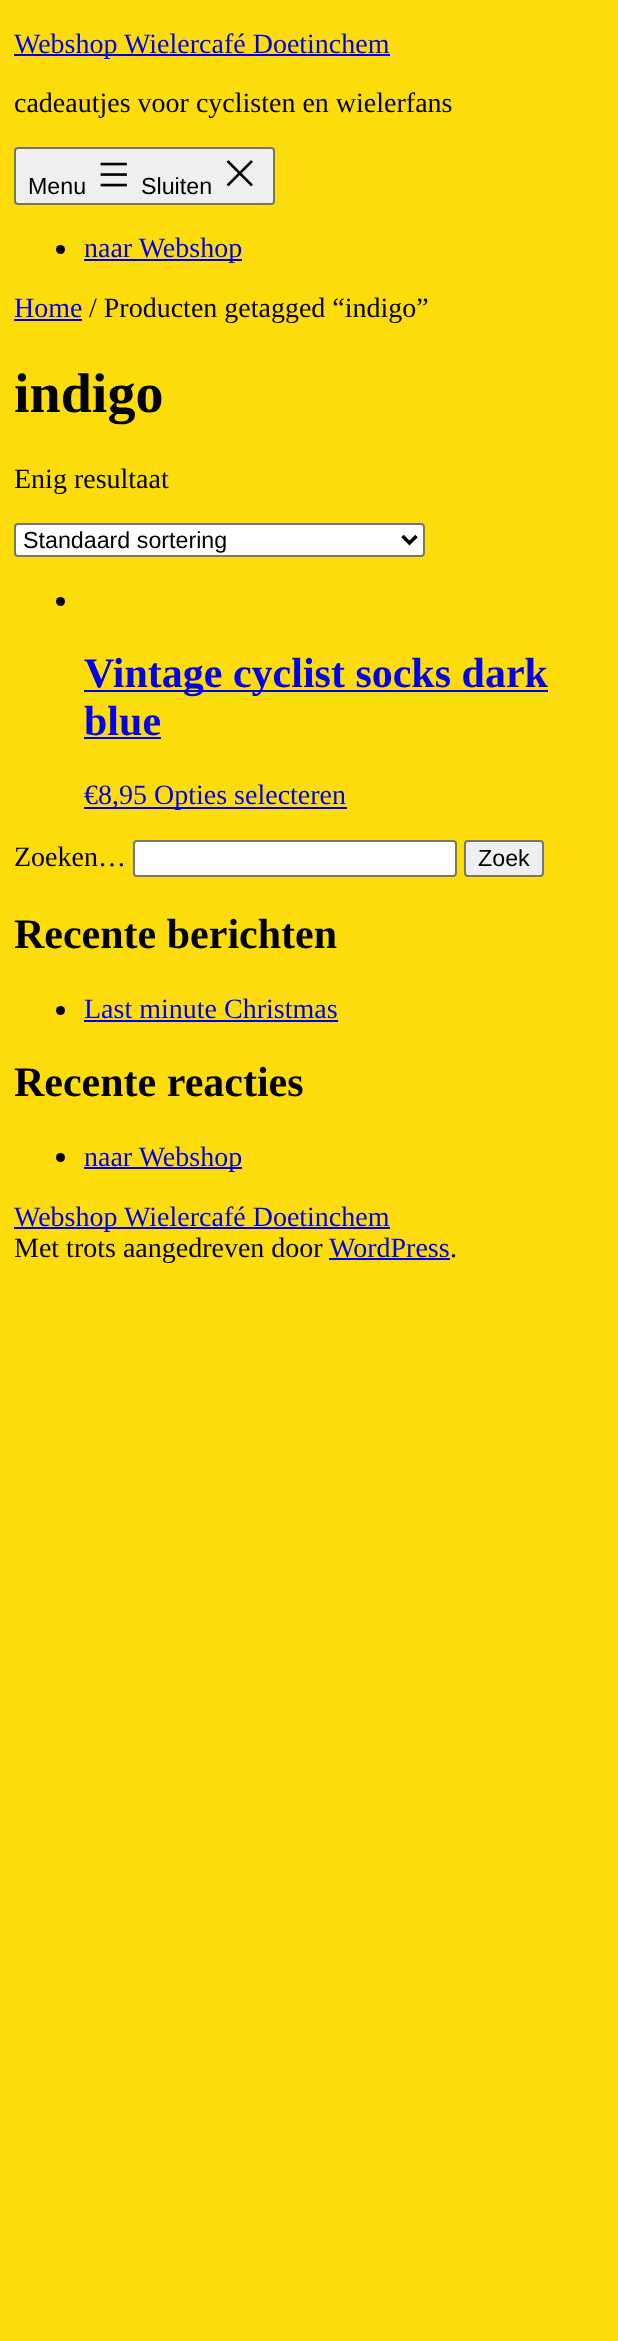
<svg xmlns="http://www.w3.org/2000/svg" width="618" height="2341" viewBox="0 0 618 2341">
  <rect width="100%" height="100%" fill="rgb(252,220,11)"/>
  <rect x="14" y="54" width="376" height="2" fill="rgb(0,0,238)"/>
  <text x="14" y="53" font-family="Liberation Serif" font-size="28" fill="rgb(0,0,238)">Webshop Wielercafé Doetinchem</text>
  <text x="14" y="112" font-family="Liberation Serif" font-size="28" fill="rgb(0,0,0)">cadeautjes voor cyclisten en wielerfans</text>
  <rect x="15" y="148" width="259" height="56" rx="3" fill="rgb(239,239,239)" stroke="rgb(118,118,118)" stroke-width="2"/>
  <text x="28" y="194" font-family="Liberation Sans" font-size="23.25" fill="rgb(0,0,0)">Menu</text>
  <image x="100" y="162" width="27" height="25" href="pic1.png"/>
  <text x="141" y="194" font-family="Liberation Sans" font-size="23.25" fill="rgb(0,0,0)">Sluiten</text>
  <image x="226" y="160" width="27" height="27" href="pic2.png"/>
  <circle cx="60.5" cy="249.5" r="4.5" fill="rgb(0,0,0)"/>
  <rect x="84" y="259" width="158" height="2" fill="rgb(0,0,238)"/>
  <g font-family="Liberation Serif" font-size="28" fill="rgb(0,0,238)">
    <text x="84" y="257">naar Webshop</text>
    <text x="14" y="317">Home</text>
  </g>
  <rect x="14" y="319" width="68" height="2" fill="rgb(0,0,238)"/>
  <text x="89" y="317" font-family="Liberation Serif" font-size="28" fill="rgb(0,0,0)">/ Producten getagged “indigo”</text>
  <text x="14" y="412" font-family="Liberation Serif" font-size="56" font-weight="bold" fill="rgb(0,0,0)">indigo</text>
  <text x="14" y="488" font-family="Liberation Serif" font-size="28" fill="rgb(0,0,0)">Enig resultaat</text>
  <rect x="15" y="524" width="409" height="32" rx="3" fill="rgb(255,255,255)" stroke="rgb(118,118,118)" stroke-width="2"/>
  <path d="M402.5 536L409.5 543L416.5 536" fill="none" stroke="rgb(0,0,0)" stroke-width="3.5"/>
  <text x="23" y="548" font-family="Liberation Sans" font-size="23.25" fill="rgb(0,0,0)">Standaard sortering</text>
  <circle cx="60.5" cy="601.5" r="4.5" fill="rgb(0,0,0)"/>
  <rect x="84" y="690" width="464" height="2" fill="rgb(0,0,238)"/>
  <g font-family="Liberation Serif" font-size="42" font-weight="bold" fill="rgb(0,0,238)">
    <text>
      <tspan x="84" y="687">Vintage cyclist socks dark</tspan>
      <tspan x="84" y="735">blue</tspan>
    </text>
  </g>
  <rect x="84" y="737" width="77" height="2" fill="rgb(0,0,238)"/>
  <rect x="84" y="807" width="263" height="2" fill="rgb(0,0,238)"/>
  <text x="84" y="804" font-family="Liberation Serif" font-size="28" fill="rgb(0,0,238)">€8,95 Opties selecteren</text>
  <text x="14" y="866" font-family="Liberation Serif" font-size="28" fill="rgb(0,0,0)">Zoeken…</text>
  <rect x="134" y="841" width="322" height="35" rx="3" fill="rgb(255,255,255)" stroke="rgb(118,118,118)" stroke-width="2"/>
  <rect x="465" y="841" width="78" height="35" rx="3" fill="rgb(239,239,239)" stroke="rgb(118,118,118)" stroke-width="2"/>
  <text x="478" y="866" font-family="Liberation Sans" font-size="23.25" fill="rgb(0,0,0)">Zoek</text>
  <text x="14" y="948" font-family="Liberation Serif" font-size="42" font-weight="bold" fill="rgb(0,0,0)">Recente berichten</text>
  <circle cx="60.5" cy="1010.5" r="4.5" fill="rgb(0,0,0)"/>
  <text x="84" y="1018" font-family="Liberation Serif" font-size="28" fill="rgb(0,0,238)">Last minute Christmas</text>
  <rect x="84" y="1020" width="254" height="2" fill="rgb(0,0,238)"/>
  <text x="14" y="1096" font-family="Liberation Serif" font-size="42" font-weight="bold" fill="rgb(0,0,0)">Recente reacties</text>
  <circle cx="60.5" cy="1157.5" r="4.5" fill="rgb(0,0,0)"/>
  <rect x="84" y="1167" width="158" height="2" fill="rgb(0,0,238)"/>
  <text x="84" y="1166" font-family="Liberation Serif" font-size="28" fill="rgb(0,0,238)">naar Webshop</text>
  <rect x="14" y="1227" width="376" height="2" fill="rgb(0,0,238)"/>
  <text x="14" y="1226" font-family="Liberation Serif" font-size="28" fill="rgb(0,0,238)">Webshop Wielercafé Doetinchem</text>
  <text x="14" y="1257" font-family="Liberation Serif" font-size="28" fill="rgb(0,0,0)">Met trots aangedreven door</text>
  <text x="329" y="1257" font-family="Liberation Serif" font-size="28" fill="rgb(0,0,238)">WordPress</text>
  <rect x="329" y="1258" width="121" height="2" fill="rgb(0,0,238)"/>
  <text x="450" y="1257" font-family="Liberation Serif" font-size="28" fill="rgb(0,0,0)">.</text>
</svg>
